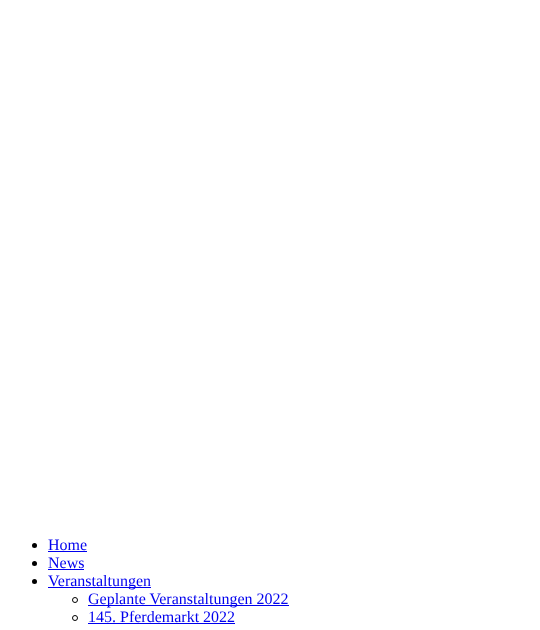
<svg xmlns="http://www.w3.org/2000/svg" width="540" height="630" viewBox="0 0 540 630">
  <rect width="100%" height="100%" fill="rgb(255,255,255)"/>
  <circle cx="34.5" cy="545.5" r="2.5" fill="rgb(0,0,0)"/>
  <text x="48" y="550" font-family="Liberation Serif" font-size="16" fill="rgb(0,0,238)">Home</text>
  <rect x="48" y="551" width="39" height="1" fill="rgb(0,0,238)"/>
  <circle cx="34.5" cy="563.5" r="2.5" fill="rgb(0,0,0)"/>
  <text x="48" y="568" font-family="Liberation Serif" font-size="16" fill="rgb(0,0,238)">News</text>
  <rect x="48" y="569" width="36" height="1" fill="rgb(0,0,238)"/>
  <circle cx="34.5" cy="581.5" r="2.5" fill="rgb(0,0,0)"/>
  <rect x="48" y="587" width="103" height="1" fill="rgb(0,0,238)"/>
  <text x="48" y="586" font-family="Liberation Serif" font-size="16" fill="rgb(0,0,238)">Veranstaltungen</text>
  <circle cx="75" cy="600" r="2.5" fill="none" stroke="rgb(0,0,0)"/>
  <rect x="88" y="605" width="201" height="1" fill="rgb(0,0,238)"/>
  <text x="88" y="604" font-family="Liberation Serif" font-size="16" fill="rgb(0,0,238)">Geplante Veranstaltungen 2022</text>
  <circle cx="75" cy="618" r="2.5" fill="none" stroke="rgb(0,0,0)"/>
  <text x="88" y="622" font-family="Liberation Serif" font-size="16" fill="rgb(0,0,238)">145. Pferdemarkt 2022</text>
  <rect x="88" y="623" width="147" height="1" fill="rgb(0,0,238)"/>
</svg>
